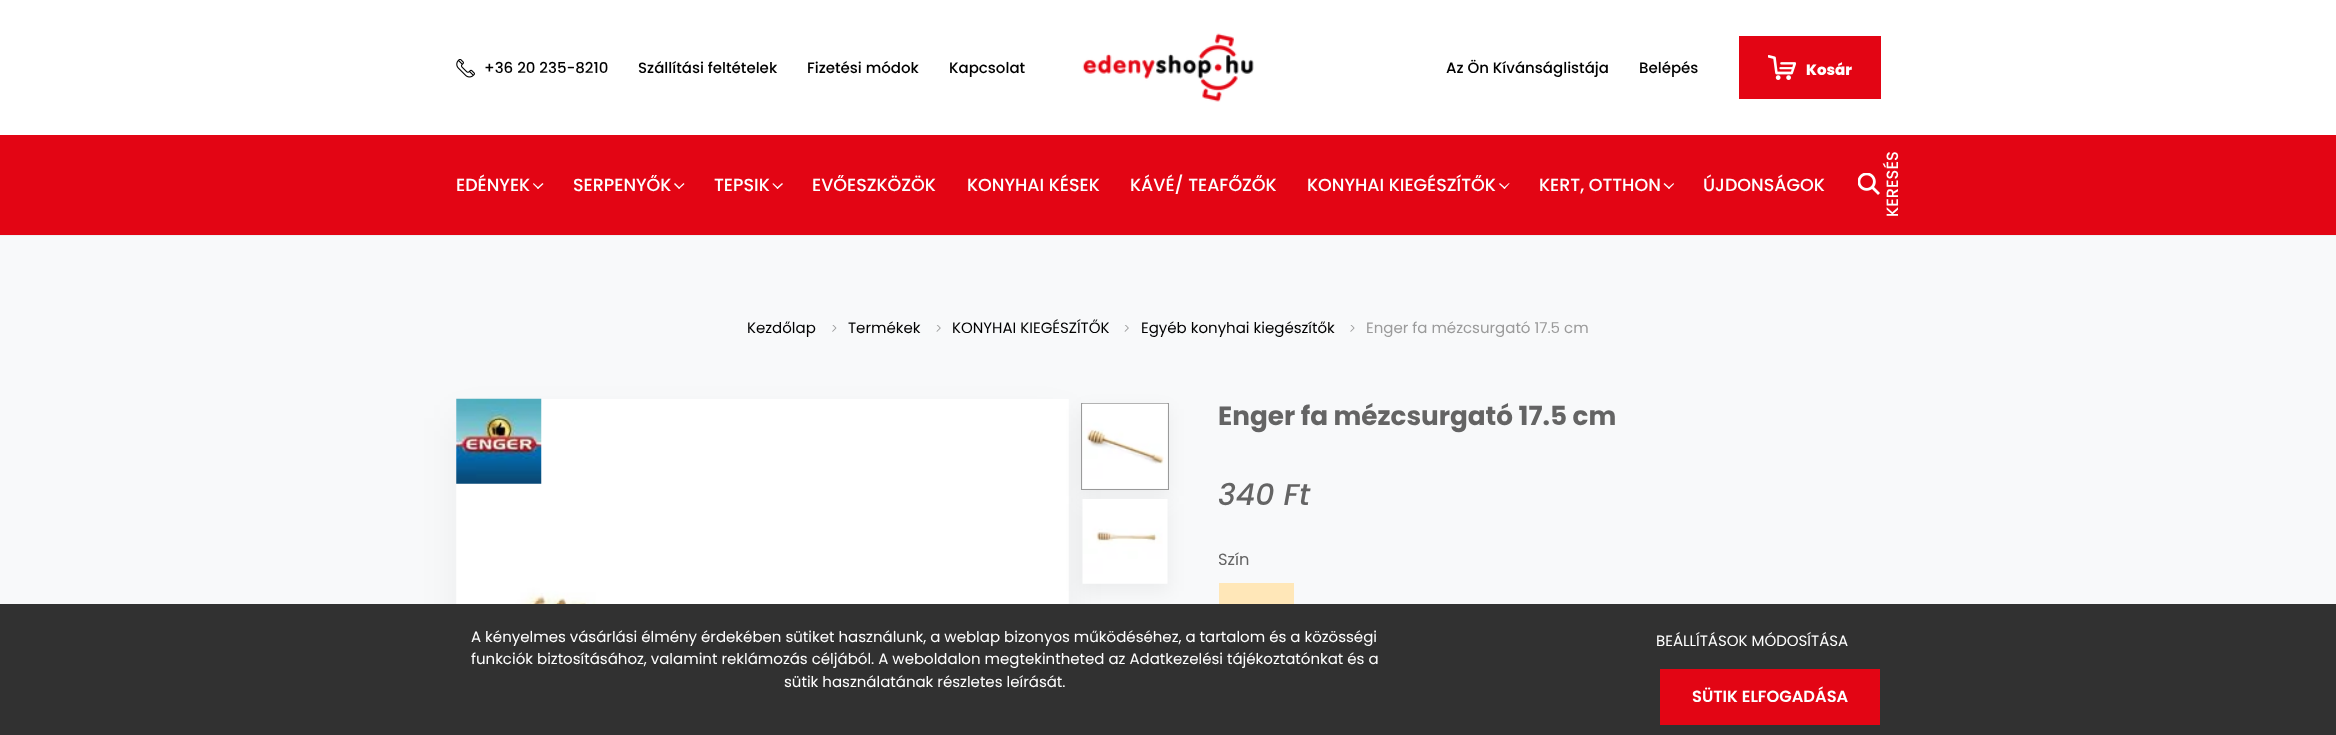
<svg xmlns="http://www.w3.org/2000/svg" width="2336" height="735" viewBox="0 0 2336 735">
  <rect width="100%" height="100%" fill="rgb(255,255,255)"/>
  <image x="456" y="59" width="19" height="19" href="pic1.png"/>
  <g font-family="Poppins" font-size="15" font-weight="500" fill="rgb(0,0,0)">
    <text x="484" y="73">+36 20 235-8210</text>
    <text x="638" y="73">Szállítási feltételek</text>
    <text x="807" y="73">Fizetési módok</text>
    <text x="949" y="73">Kapcsolat</text>
  </g>
  <image x="1082" y="33" width="172" height="69" href="pic2.png"/>
  <g font-family="Poppins" font-size="15" font-weight="500" fill="rgb(0,0,0)">
    <text x="1446" y="73">Az Ön Kívánságlistája</text>
    <text x="1639" y="73">Belépés</text>
  </g>
  <rect x="1739" y="36" width="142" height="63" fill="rgb(227,5,20)"/>
  <image x="1768" y="55" width="28" height="25" href="pic3.png"/>
  <text x="1806" y="75" font-family="Poppins" font-size="15" font-weight="800" fill="rgb(255,255,255)">Kosár</text>
  <rect x="0" y="135" width="2336" height="100" fill="rgb(227,5,20)"/>
  <rect x="0" y="235" width="2336" height="1" fill="rgb(239,240,241)"/>
  <text x="456" y="191" font-family="Poppins" font-size="17.5" font-weight="500" fill="rgb(255,255,255)">EDÉNYEK</text>
  <path d="M542.5 183L543.5 184L538 189L537 188Z" fill="rgb(255,255,255)"/>
  <path d="M533.5 183L539 188L538 189L533 184Z" fill="rgb(255,255,255)"/>
  <text x="573" y="191" font-family="Poppins" font-size="17.5" font-weight="500" fill="rgb(255,255,255)">SERPENYŐK</text>
  <path d="M683.5 183L684.5 184L679 189L678.5 188Z" fill="rgb(255,255,255)"/>
  <path d="M675 183L680 188L679 189L674 184Z" fill="rgb(255,255,255)"/>
  <text x="714" y="191" font-family="Poppins" font-size="17.5" font-weight="500" fill="rgb(255,255,255)">TEPSIK</text>
  <path d="M782 183L783 184L777.5 189L776.5 188Z" fill="rgb(255,255,255)"/>
  <path d="M773 183L778.5 188L777.5 189L772.5 184Z" fill="rgb(255,255,255)"/>
  <g font-family="Poppins" font-size="17.5" font-weight="500" fill="rgb(255,255,255)">
    <text x="812" y="191">EVŐESZKÖZÖK</text>
    <text x="967" y="191">KONYHAI KÉSEK</text>
    <text x="1130" y="191">KÁVÉ/ TEAFŐZŐK</text>
    <text x="1307" y="191">KONYHAI KIEGÉSZÍTŐK</text>
  </g>
  <path d="M1509 183L1509.5 183.5L1504.5 189L1503.5 188Z" fill="rgb(255,255,255)"/>
  <path d="M1500 183L1505.5 188L1504.5 189L1499 184Z" fill="rgb(255,255,255)"/>
  <text x="1539" y="191" font-family="Poppins" font-size="17.5" font-weight="500" fill="rgb(255,255,255)">KERT, OTTHON</text>
  <path d="M1673.5 183L1674 184L1669 189L1668 188Z" fill="rgb(255,255,255)"/>
  <path d="M1664.5 183L1670 188L1669 189L1663.5 184Z" fill="rgb(255,255,255)"/>
  <text x="1703" y="191" font-family="Poppins" font-size="17.5" font-weight="500" fill="rgb(255,255,255)">ÚJDONSÁGOK</text>
  <image x="1858" y="173" width="22" height="22" href="pic4.png"/>
  <text x="1898" y="217" transform="rotate(-90 1898 217)" font-family="Poppins" font-size="16.25" font-weight="500" fill="rgb(255,255,255)">KERESÉS</text>
  <rect x="0" y="236" width="2336" height="368" fill="rgb(248,249,250)"/>
  <text x="747" y="333" font-family="Poppins" font-size="15" fill="rgb(0,0,0)">Kezdőlap</text>
  <image x="832" y="325" width="5" height="7" href="pic5.png"/>
  <text x="848" y="333" font-family="Poppins" font-size="15" fill="rgb(0,0,0)">Termékek</text>
  <image x="936" y="325" width="5" height="7" href="pic6.png"/>
  <text x="952" y="333" font-family="Poppins" font-size="15" fill="rgb(0,0,0)">KONYHAI KIEGÉSZÍTŐK</text>
  <image x="1124" y="325" width="5" height="7" href="pic7.png"/>
  <text x="1141" y="333" font-family="Poppins" font-size="15" fill="rgb(0,0,0)">Egyéb konyhai kiegészítők</text>
  <image x="1350" y="325" width="5" height="7" href="pic8.png"/>
  <text x="1366" y="333" font-family="Poppins" font-size="15" fill="rgb(154,154,154)">Enger fa mézcsurgató 17.5 cm</text>
  <rect x="456" y="418" width="613" height="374" fill="rgba(0,0,0,0.05)" filter="blur(19px)"/>
  <image x="456" y="399" width="613" height="205" href="pic10.png"/>
  <image x="456" y="398" width="86" height="86" href="pic9.png"/>
  <rect x="1081" y="409" width="88" height="87" fill="rgba(0,0,0,0.05)" filter="blur(9px)"/>
  <rect x="1081.5" y="403.5" width="87" height="86" fill="none" stroke="rgb(154,154,154)"/>
  <image x="1082" y="403" width="86" height="86" href="pic11.png"/>
  <rect x="1081" y="504" width="88" height="87" fill="rgba(0,0,0,0.05)" filter="blur(9px)"/>
  <image x="1082" y="499" width="86" height="85" href="pic12.png"/>
  <text x="1218" y="425" font-family="Poppins" font-size="26.25" font-weight="bold" fill="rgb(100,100,100)">Enger fa mézcsurgató 17.5 cm</text>
  <text x="1218" y="505" font-family="Poppins" font-size="30" font-weight="500" font-style="italic" fill="rgb(100,100,100)">340 Ft</text>
  <text x="1218" y="565" font-family="Poppins" font-size="16.25" fill="rgb(100,100,100)">Szín</text>
  <rect x="1219" y="583" width="75" height="21" fill="rgb(255,231,184)"/>
  <rect x="0" y="604" width="2336" height="131" fill="rgb(49,49,49)"/>
  <g font-family="Poppins" font-size="15" fill="rgb(255,255,255)">
    <text>
      <tspan x="471" y="642">A kényelmes vásárlási élmény érdekében sütiket használunk, a weblap bizonyos működéséhez, a tartalom és a közösségi</tspan>
      <tspan x="471" y="664">funkciók biztosításához, valamint reklámozás céljából. A weboldalon megtekintheted az Adatkezelési tájékoztatónkat és a</tspan>
    </text>
    <text x="784" y="687">sütik használatának részletes leírását.</text>
    <text x="1656" y="646">BEÁLLÍTÁSOK MÓDOSÍTÁSA</text>
  </g>
  <rect x="1660" y="669" width="220" height="56" fill="rgb(227,5,20)"/>
  <text x="1692" y="702" font-family="Poppins" font-size="16.25" font-weight="600" fill="rgb(255,255,255)">SÜTIK ELFOGADÁSA</text>
</svg>
